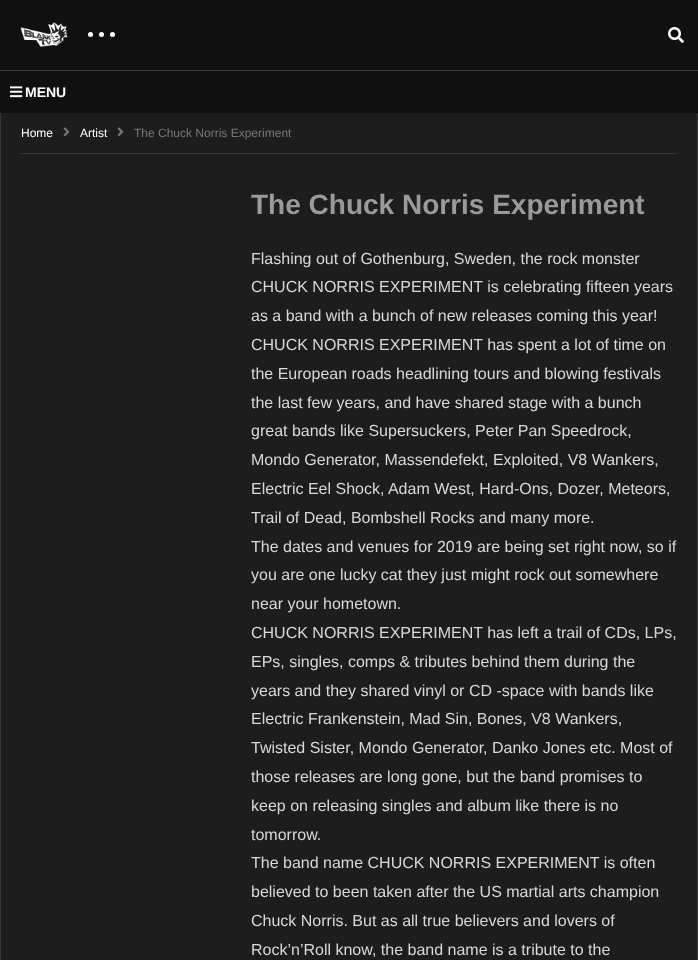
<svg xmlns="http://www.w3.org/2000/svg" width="698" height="960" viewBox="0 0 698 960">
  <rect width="100%" height="100%" fill="rgb(29,29,29)"/>
  <rect x="0" y="0" width="698" height="113" fill="rgb(16,16,16)"/>
  <image x="20" y="22" width="48" height="25" href="pic1.png"/>
  <circle cx="90.5" cy="34.5" r="2.5" fill="rgb(255,255,255)"/>
  <circle cx="101.5" cy="34.5" r="2.5" fill="rgb(255,255,255)"/>
  <circle cx="112.5" cy="34.5" r="2.5" fill="rgb(255,255,255)"/>
  <image x="668" y="27" width="16" height="16" href="pic2.png"/>
  <rect x="0" y="70" width="698" height="1" fill="rgb(60,60,60)"/>
  <image x="10" y="86" width="13" height="12" href="pic3.png"/>
  <text x="25" y="97" font-family="Liberation Sans" font-size="14" font-weight="bold" fill="rgb(255,255,255)">MENU</text>
  <rect x="697" y="113" width="1" height="847" fill="rgb(54,54,54)"/>
  <rect x="0" y="113" width="1" height="847" fill="rgb(54,54,54)"/>
  <rect x="21" y="153" width="656" height="1" fill="rgb(54,54,54)"/>
  <text x="21" y="137" font-family="Liberation Sans" font-size="12" fill="rgb(255,255,255)">Home</text>
  <image x="63" y="127" width="7" height="9" href="pic4.png"/>
  <text x="80" y="137" font-family="Liberation Sans" font-size="12" fill="rgb(255,255,255)">Artist</text>
  <image x="117" y="127" width="7" height="9" href="pic4.png"/>
  <text x="134" y="137" font-family="Liberation Sans" font-size="12" fill="rgb(120,120,120)">The Chuck Norris Experiment</text>
  <text x="251" y="214" font-family="Liberation Sans" font-size="28" font-weight="bold" fill="rgb(154,154,154)">The Chuck Norris Experiment</text>
  <g font-family="Liberation Sans" font-size="16" fill="rgb(216,216,216)">
    <text>
      <tspan x="251" y="264">Flashing out of Gothenburg, Sweden, the rock monster</tspan>
      <tspan x="251" y="292">CHUCK NORRIS EXPERIMENT is celebrating fifteen years</tspan>
      <tspan x="251" y="321">as a band with a bunch of new releases coming this year!</tspan>
      <tspan x="251" y="350">CHUCK NORRIS EXPERIMENT has spent a lot of time on</tspan>
      <tspan x="251" y="379">the European roads headlining tours and blowing festivals</tspan>
      <tspan x="251" y="408">the last few years, and have shared stage with a bunch</tspan>
      <tspan x="251" y="436">great bands like Supersuckers, Peter Pan Speedrock,</tspan>
      <tspan x="251" y="465">Mondo Generator, Massendefekt, Exploited, V8 Wankers,</tspan>
      <tspan x="251" y="494">Electric Eel Shock, Adam West, Hard-Ons, Dozer, Meteors,</tspan>
      <tspan x="251" y="523">Trail of Dead, Bombshell Rocks and many more.</tspan>
      <tspan x="251" y="552">The dates and venues for 2019 are being set right now, so if</tspan>
      <tspan x="251" y="580">you are one lucky cat they just might rock out somewhere</tspan>
      <tspan x="251" y="609">near your hometown.</tspan>
      <tspan x="251" y="638">CHUCK NORRIS EXPERIMENT has left a trail of CDs, LPs,</tspan>
      <tspan x="251" y="667">EPs, singles, comps &amp; tributes behind them during the</tspan>
      <tspan x="251" y="696">years and they shared vinyl or CD -space with bands like</tspan>
      <tspan x="251" y="724">Electric Frankenstein, Mad Sin, Bones, V8 Wankers,</tspan>
      <tspan x="251" y="753">Twisted Sister, Mondo Generator, Danko Jones etc. Most of</tspan>
      <tspan x="251" y="782">those releases are long gone, but the band promises to</tspan>
      <tspan x="251" y="811">keep on releasing singles and album like there is no</tspan>
      <tspan x="251" y="840">tomorrow.</tspan>
      <tspan x="251" y="868">The band name CHUCK NORRIS EXPERIMENT is often</tspan>
      <tspan x="251" y="897">believed to been taken after the US martial arts champion</tspan>
      <tspan x="251" y="926">Chuck Norris. But as all true believers and lovers of</tspan>
      <tspan x="251" y="955">Rock’n’Roll know, the band name is a tribute to the</tspan>
    </text>
  </g>
</svg>
